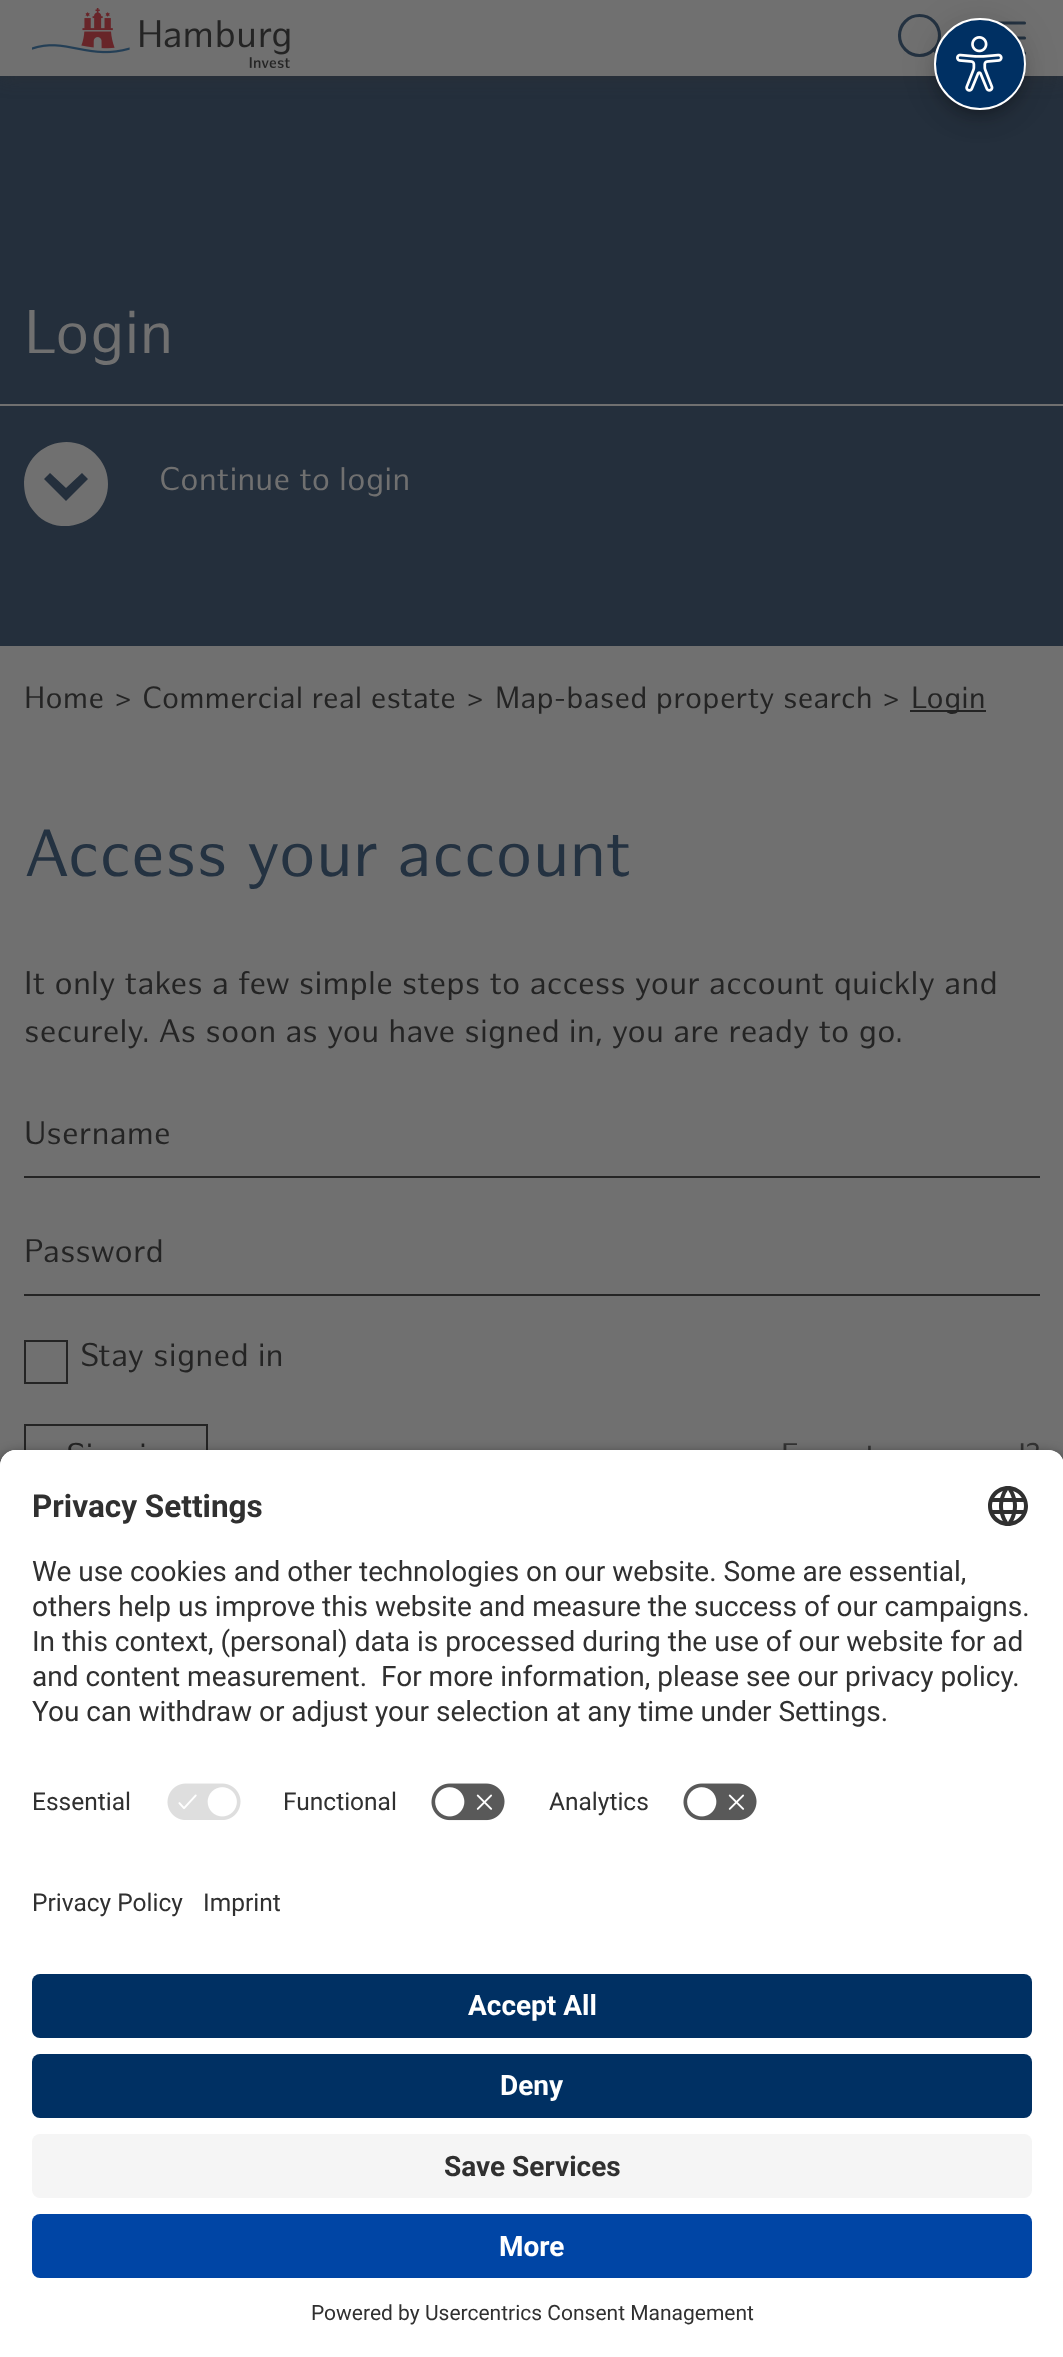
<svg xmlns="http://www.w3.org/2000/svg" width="1063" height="2357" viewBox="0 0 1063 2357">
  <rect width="100%" height="100%" fill="rgb(112,112,112)"/>
  <rect x="0" y="76" width="1063" height="570" fill="rgb(36,47,60)"/>
  <rect x="0" y="0" width="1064" height="76" fill="rgba(50,50,50,0.5)" filter="blur(10px)"/>
  <rect x="0" y="0" width="1063" height="76" fill="rgb(112,112,112)"/>
  <circle cx="919.5" cy="35.5" r="20" fill="none" stroke="rgb(36,50,65)" stroke-width="3.1"/>
  <path d="M944.5 60.5L933.5 49.5" fill="none" stroke="rgb(36,50,65)" stroke-width="3.1" stroke-linecap="round" stroke-linejoin="round"/>
  <path d="M979.5 38H1024.5M979.5 23H1024.5M979.5 53H1024.5" fill="none" stroke="rgb(36,50,65)" stroke-width="3.1" stroke-linecap="round" stroke-linejoin="round"/>
  <rect x="936" y="22" width="88" height="88" rx="44" fill="rgba(0,0,0,0.12)" filter="blur(18px)"/>
  <rect x="936" y="32" width="88" height="88" rx="44" fill="rgba(0,0,0,0.14)" filter="blur(10px)"/>
  <rect x="938" y="28" width="84" height="84" rx="42" fill="rgba(0,0,0,0.2)" filter="blur(5px)"/>
  <circle cx="980" cy="64" r="45" fill="rgb(0,48,99)" stroke="rgb(255,255,255)" stroke-width="2"/>
  <image x="956" y="36" width="47" height="56" href="pic1.png"/>
  <image x="32" y="8" width="258" height="60" href="pic2.png"/>
  <text x="24" y="353" font-family="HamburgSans" font-size="60" fill="rgb(112,112,112)">Login</text>
  <rect x="0" y="404" width="1063" height="2" fill="rgb(112,112,112)"/>
  <path d="M108 484C108 508 89 524 69 526H61C50 525 40 520 32 509C26 501 24 492 24 482C26 444 74 428 98 457C105 465 108 474 108 484ZM44 479L66 501L88 479L82 473L66 488L50 473Z" fill="rgb(112,112,112)" fill-rule="evenodd"/>
  <text x="159" y="490" font-family="HamburgSans" font-size="32" fill="rgb(112,112,112)">Continue to login</text>
  <g font-family="HamburgSans" font-size="30" fill="rgb(36,36,36)">
    <text x="24" y="708">Home</text>
    <text x="114" y="708">&gt;</text>
    <text x="142" y="708">Commercial real estate</text>
    <text x="466" y="708">&gt;</text>
    <text x="495" y="708">Map-based property search</text>
    <text x="882" y="708">&gt;</text>
  </g>
  <rect x="910" y="710" width="76" height="2" fill="rgb(36,36,36)"/>
  <text x="911" y="708" font-family="HamburgSans" font-size="30" fill="rgb(36,36,36)">Login</text>
  <text x="24" y="876" font-family="HamburgSans" font-size="65" fill="rgb(36,50,65)">Access your account</text>
  <g font-family="HamburgSans" font-size="32" fill="rgb(36,36,36)">
    <text>
      <tspan x="24" y="994">It only takes a few simple steps to access your account quickly and</tspan>
      <tspan x="24" y="1042">securely. As soon as you have signed in, you are ready to go.</tspan>
    </text>
  </g>
  <image x="24" y="1121" width="1016" height="329" href="pic3.png"/>
  <rect x="0" y="1456" width="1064" height="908" rx="16" fill="rgba(0,0,0,0.8)" filter="blur(7px)"/>
  <path d="M16 1450H1048C1057 1450 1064 1457 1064 1466V1858H0V1466C0 1457 7 1450 16 1450Z" fill="rgb(255,255,255)"/>
  <path d="M16 1450H1048C1057 1450 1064 1457 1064 1466V1770H0V1466C0 1457 7 1450 16 1450Z" fill="rgb(255,255,255)"/>
  <text x="32" y="1517" font-family="Roboto" font-size="31.5" font-weight="bold" fill="rgb(48,48,48)">Privacy Settings</text>
  <image x="988" y="1486" width="40" height="40" href="pic4.png"/>
  <g font-family="Roboto" font-size="28" fill="rgb(48,48,48)">
    <text xml:space="preserve"><tspan x="32" y="1581">We use cookies and other technologies on our website. Some are essential,</tspan><tspan x="32" y="1616">others help us improve this website and measure the success of our campaigns.</tspan><tspan x="32" y="1651">In this context, (personal) data is processed during the use of our website for ad</tspan><tspan x="32" y="1686">and content measurement.  For more information, please see our privacy policy.</tspan><tspan x="32" y="1721">You can withdraw or adjust your selection at any time under Settings.</tspan></text>
  </g>
  <text x="32" y="1810" font-family="Roboto" font-size="24.5" fill="rgb(48,48,48)">Essential</text>
  <image x="167" y="1783" width="74" height="37" href="pic5.png"/>
  <text x="283" y="1810" font-family="Roboto" font-size="24.5" fill="rgb(48,48,48)">Functional</text>
  <image x="431" y="1783" width="74" height="38" href="pic6.png"/>
  <text x="549" y="1810" font-family="Roboto" font-size="24.5" fill="rgb(48,48,48)">Analytics</text>
  <image x="683" y="1783" width="74" height="38" href="pic6.png"/>
  <rect x="0" y="1858" width="1063" height="499" fill="rgb(255,255,255)"/>
  <g font-family="Roboto" font-size="24.5" fill="rgb(48,48,48)">
    <text x="32" y="1911">Privacy Policy</text>
    <text x="203" y="1911">Imprint</text>
  </g>
  <rect x="32" y="1974" width="1000" height="64" rx="8" fill="rgb(0,48,99)"/>
  <text x="468" y="2015" font-family="Roboto" font-size="28" font-weight="bold" fill="rgb(255,255,255)">Accept All</text>
  <rect x="32" y="2054" width="1000" height="64" rx="8" fill="rgb(0,48,99)"/>
  <text x="500" y="2095" font-family="Roboto" font-size="28" font-weight="bold" fill="rgb(255,255,255)">Deny</text>
  <rect x="32" y="2134" width="1000" height="64" rx="8" fill="rgb(245,245,245)"/>
  <text x="444" y="2176" font-family="Roboto" font-size="28" font-weight="bold" fill="rgb(48,48,48)">Save Services</text>
  <rect x="32" y="2214" width="1000" height="64" rx="8" fill="rgb(0,69,165)"/>
  <text x="499" y="2256" font-family="Roboto" font-size="28" font-weight="bold" fill="rgb(255,255,255)">More</text>
  <text x="311" y="2320" font-family="Roboto" font-size="21" fill="rgb(48,48,48)">Powered by Usercentrics Consent Management</text>
</svg>
